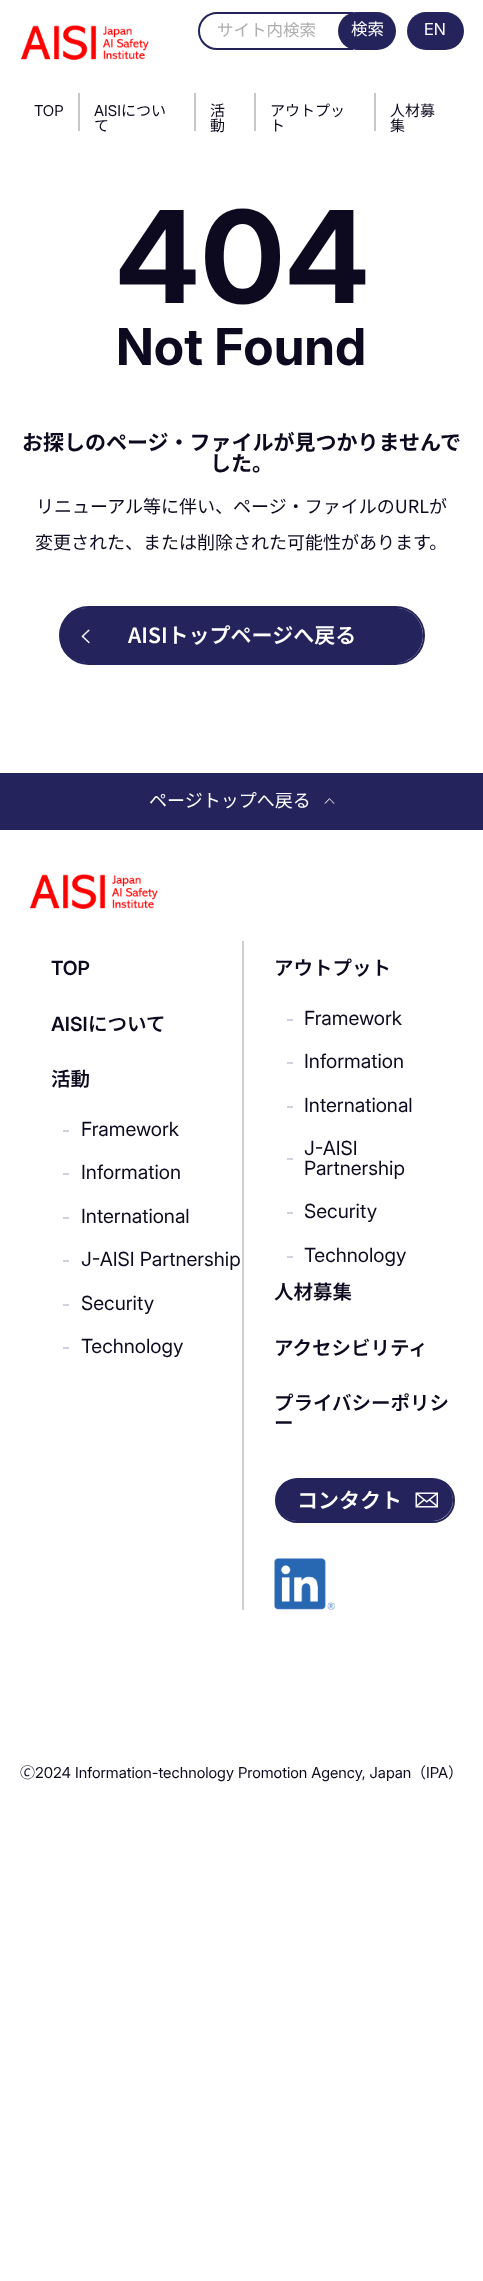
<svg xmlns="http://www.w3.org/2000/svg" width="483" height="2281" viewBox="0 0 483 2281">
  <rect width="100%" height="100%" fill="rgb(255,255,255)"/>
  <image x="21" y="25" width="128" height="35" href="pic1.png"/>
  <path d="M217 13H352V49H217C207 49 199 41 199 31C199 21 207 13 217 13Z" fill="none" stroke="rgb(36,35,92)" stroke-width="2"/>
  <text x="217" y="36" font-family="Noto Sans JP" font-size="16.5" fill="rgb(173,173,173)">サイト内検索</text>
  <rect x="338" y="12" width="58" height="38" rx="19" fill="rgb(36,35,92)"/>
  <text x="351" y="35" font-family="Noto Sans JP" font-size="16.5" fill="rgb(255,255,255)">検索</text>
  <rect x="407" y="12" width="57" height="38" rx="19" fill="rgb(36,35,92)"/>
  <text x="424" y="35" font-family="Inter" font-size="16.5" fill="rgb(255,255,255)">EN</text>
  <text x="34" y="116" font-family="Inter" font-size="15" fill="rgb(13,10,31)">TOP</text>
  <rect x="78" y="93" width="2" height="38" fill="rgb(199,199,199)"/>
  <text x="94" y="116" font-family="Inter" font-size="15" fill="rgb(13,10,31)">AISI</text>
  <g font-family="Noto Sans JP" font-size="15" fill="rgb(13,10,31)">
    <text x="121" y="116">につい</text>
    <text x="94" y="131">て</text>
  </g>
  <rect x="194" y="93" width="2" height="38" fill="rgb(199,199,199)"/>
  <g font-family="Noto Sans JP" font-size="15" fill="rgb(13,10,31)">
    <text>
      <tspan x="210" y="116">活</tspan>
      <tspan x="210" y="131">動</tspan>
    </text>
  </g>
  <rect x="254" y="93" width="2" height="38" fill="rgb(199,199,199)"/>
  <g font-family="Noto Sans JP" font-size="15" fill="rgb(13,10,31)">
    <text>
      <tspan x="270" y="116">アウトプッ</tspan>
      <tspan x="270" y="131">ト</tspan>
    </text>
  </g>
  <rect x="374" y="93" width="2" height="38" fill="rgb(199,199,199)"/>
  <g font-family="Noto Sans JP" font-size="15" fill="rgb(13,10,31)">
    <text>
      <tspan x="390" y="116">人材募</tspan>
      <tspan x="390" y="131">集</tspan>
    </text>
  </g>
  <text x="115" y="303" font-family="Inter" font-size="128" font-weight="bold" fill="rgb(13,10,31)">404</text>
  <text x="116" y="365" font-family="Inter" font-size="51" font-weight="bold" fill="rgb(13,10,31)">Not Found</text>
  <g font-family="Noto Sans JP" font-size="21" font-weight="bold" fill="rgb(13,10,31)">
    <text x="22" y="450">お探しのページ・ファイルが見つかりませんで</text>
    <text x="210" y="471">した。</text>
  </g>
  <g font-family="Noto Sans JP" font-size="18" fill="rgb(13,10,31)">
    <text x="36" y="513">リニューアル等に伴い、ページ・ファイルのURLが</text>
    <text x="35" y="549">変更された、または削除された可能性があります。</text>
  </g>
  <rect x="60" y="608" width="363" height="55" rx="27.5" fill="rgb(36,35,92)"/>
  <path d="M88 663H396C399 663 403 662 406 661H77C80 662 84 663 88 663ZM61 643V628C60 633 60 638 61 643ZM88 608C84 608 80 609 77 610H406C403 609 399 608 396 608Z" fill="rgb(36,35,92)" fill-rule="evenodd"/>
  <image x="81" y="629" width="9" height="15" href="pic2.png"/>
  <rect x="60" y="607" width="364" height="57" rx="28.5" fill="none" stroke="rgb(36,35,92)" stroke-width="2"/>
  <text x="128" y="643" font-family="Noto Sans JP" font-size="21" font-weight="600" fill="rgb(255,255,255)">AISIトップページへ戻る</text>
  <rect x="0" y="773" width="483" height="57" fill="rgb(36,35,92)"/>
  <text x="149" y="807" font-family="Noto Sans JP" font-size="18" fill="rgb(255,255,255)">ページトップへ戻る</text>
  <image x="324" y="798" width="11" height="6" href="pic3.png"/>
  <image x="30" y="874" width="128" height="35" href="pic1.png"/>
  <g font-family="Inter" font-size="19.5" font-weight="600" fill="rgb(13,10,31)">
    <text x="51" y="975">TOP</text>
    <text x="51" y="1031">AISI</text>
  </g>
  <text x="88" y="1031" font-family="Noto Sans JP" font-size="19.5" font-weight="600" fill="rgb(13,10,31)">について</text>
  <rect x="242" y="941" width="2" height="669" fill="rgb(207,206,210)"/>
  <text x="274" y="975" font-family="Noto Sans JP" font-size="19.5" font-weight="600" fill="rgb(13,10,31)">アウトプット</text>
  <rect x="287" y="1019" width="6" height="2" fill="rgb(207,210,223)"/>
  <text x="304" y="1025" font-family="Inter" font-size="19.5" fill="rgb(13,10,31)">Framework</text>
  <rect x="287" y="1062" width="6" height="2" fill="rgb(207,210,223)"/>
  <text x="304" y="1068" font-family="Inter" font-size="19.5" fill="rgb(13,10,31)">Information</text>
  <rect x="287" y="1106" width="6" height="2" fill="rgb(207,210,223)"/>
  <g font-family="Inter" font-size="19.5" fill="rgb(13,10,31)">
    <text x="304" y="1112">International</text>
    <text x="304" y="1155">J-AISI</text>
  </g>
  <rect x="287" y="1158" width="6" height="2" fill="rgb(207,210,223)"/>
  <text x="304" y="1175" font-family="Inter" font-size="19.5" fill="rgb(13,10,31)">Partnership</text>
  <rect x="287" y="1212" width="6" height="2" fill="rgb(207,210,223)"/>
  <text x="304" y="1218" font-family="Inter" font-size="19.5" fill="rgb(13,10,31)">Security</text>
  <rect x="287" y="1256" width="6" height="2" fill="rgb(207,210,223)"/>
  <text x="304" y="1262" font-family="Inter" font-size="19.5" fill="rgb(13,10,31)">Technology</text>
  <text x="51" y="1086" font-family="Noto Sans JP" font-size="19.5" font-weight="600" fill="rgb(13,10,31)">活動</text>
  <rect x="63" y="1130" width="6" height="2" fill="rgb(207,210,223)"/>
  <text x="81" y="1136" font-family="Inter" font-size="19.5" fill="rgb(13,10,31)">Framework</text>
  <rect x="63" y="1173" width="6" height="2" fill="rgb(207,210,223)"/>
  <text x="81" y="1179" font-family="Inter" font-size="19.5" fill="rgb(13,10,31)">Information</text>
  <rect x="63" y="1217" width="6" height="2" fill="rgb(207,210,223)"/>
  <text x="81" y="1223" font-family="Inter" font-size="19.5" fill="rgb(13,10,31)">International</text>
  <rect x="63" y="1260" width="6" height="2" fill="rgb(207,210,223)"/>
  <text x="81" y="1266" font-family="Inter" font-size="19.5" fill="rgb(13,10,31)">J-AISI Partnership</text>
  <rect x="63" y="1304" width="6" height="2" fill="rgb(207,210,223)"/>
  <text x="81" y="1310" font-family="Inter" font-size="19.5" fill="rgb(13,10,31)">Security</text>
  <rect x="63" y="1347" width="6" height="2" fill="rgb(207,210,223)"/>
  <text x="81" y="1353" font-family="Inter" font-size="19.5" fill="rgb(13,10,31)">Technology</text>
  <g font-family="Noto Sans JP" font-size="19.5" font-weight="600" fill="rgb(13,10,31)">
    <text x="274" y="1299">人材募集</text>
    <text x="274" y="1355">アクセシビリティ</text>
    <text>
      <tspan x="274" y="1410">プライバシーポリシ</tspan>
      <tspan x="274" y="1430">ー</tspan>
    </text>
  </g>
  <rect x="276" y="1479" width="177" height="42" rx="21" fill="rgb(36,35,92)"/>
  <image x="415" y="1492" width="23" height="16" href="pic4.png"/>
  <rect x="276" y="1479" width="178" height="43" rx="21.5" fill="none" stroke="rgb(36,35,92)" stroke-width="2"/>
  <text x="297" y="1508" font-family="Noto Sans JP" font-size="21" font-weight="600" fill="rgb(255,255,255)">コンタクト</text>
  <image x="274" y="1558" width="61" height="52" href="pic5.png"/>
  <text x="20" y="1778" font-family="Noto Sans JP" font-size="15" fill="rgb(13,10,31)">🄫</text>
  <text x="35" y="1778" font-family="Inter" font-size="15" fill="rgb(13,10,31)">2024 Information-technology Promotion Agency, Japan</text>
  <text x="411" y="1778" font-family="Noto Sans JP" font-size="15" fill="rgb(13,10,31)">（</text>
  <text x="426" y="1778" font-family="Inter" font-size="15" fill="rgb(13,10,31)">IPA</text>
  <text x="448" y="1778" font-family="Noto Sans JP" font-size="15" fill="rgb(13,10,31)">）</text>
</svg>
